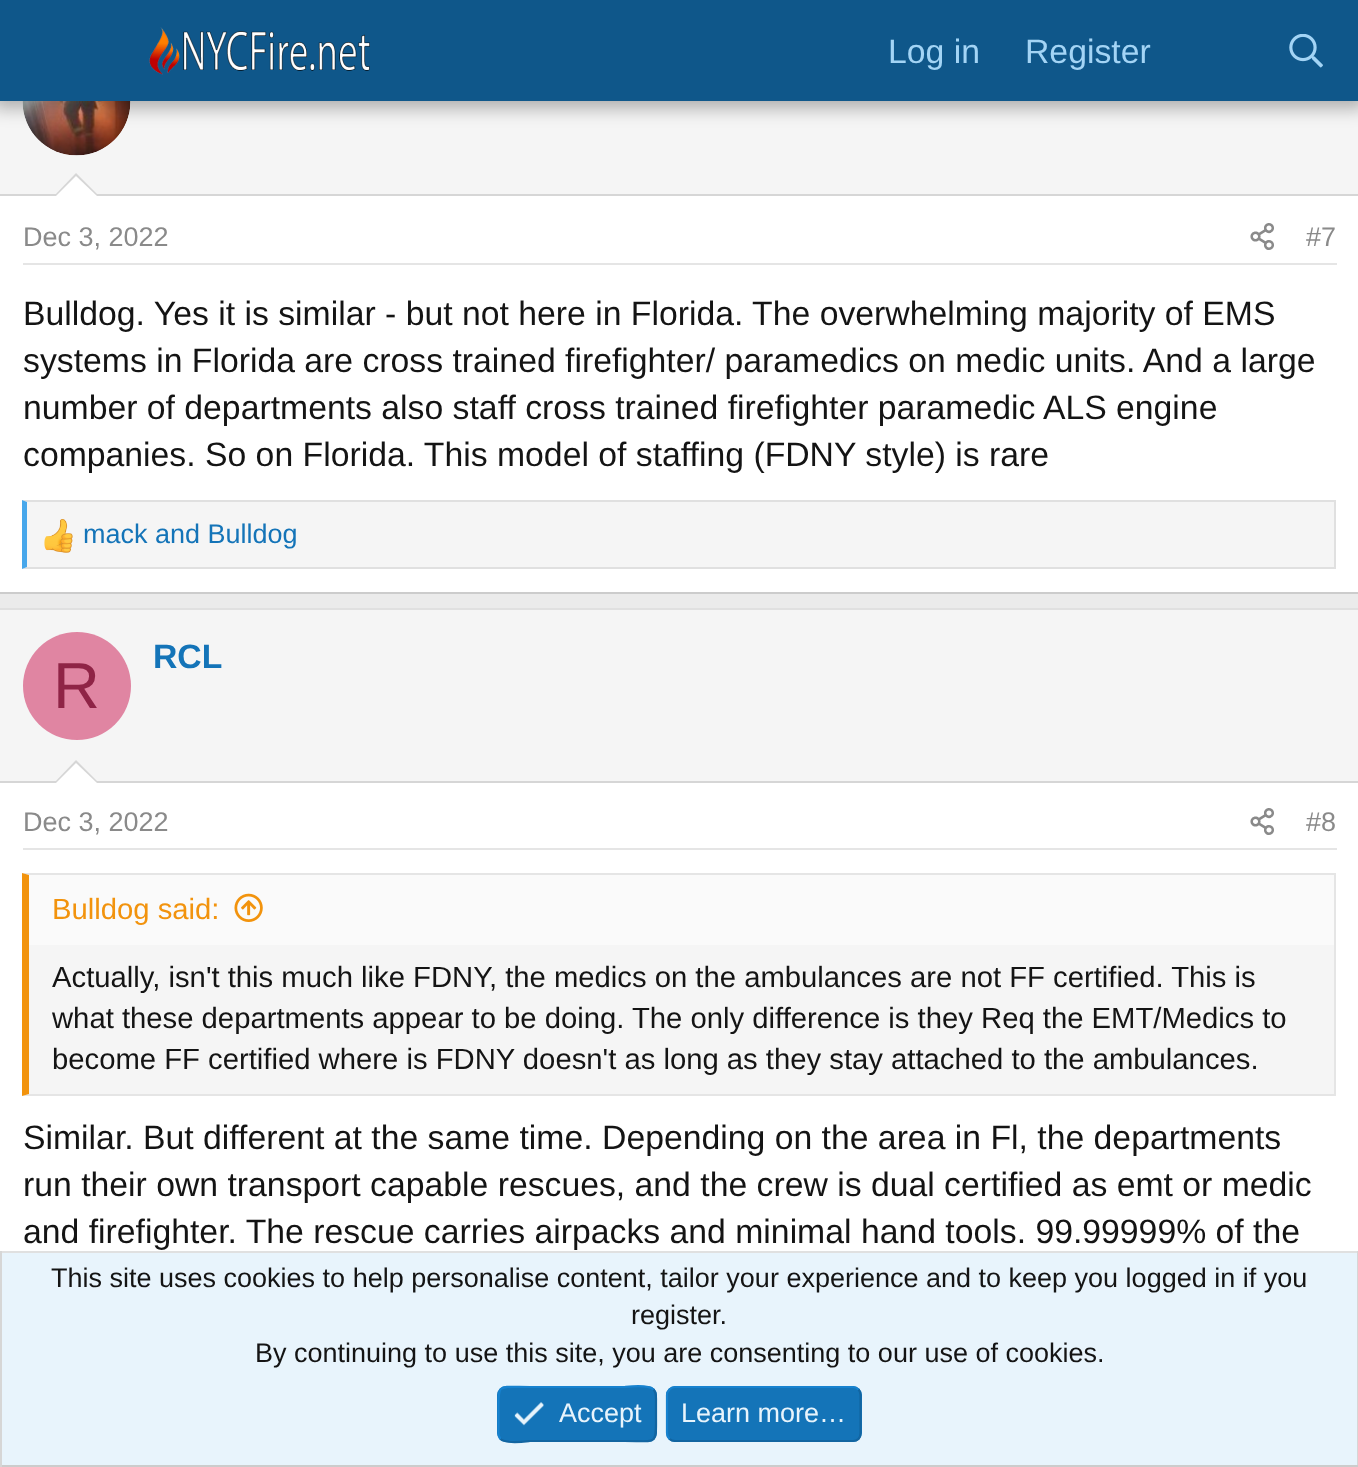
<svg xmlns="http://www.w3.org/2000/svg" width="1358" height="1467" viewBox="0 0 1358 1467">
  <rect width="100%" height="100%" fill="rgb(235,235,235)"/>
  <rect x="0" y="101" width="1358" height="93" fill="rgb(245,245,245)"/>
  <circle cx="77" cy="101" r="54" fill="rgb(255,255,255)"/>
  <image x="22" y="101" width="109" height="55" href="pic3.png"/>
  <rect x="-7" y="-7" width="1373" height="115" fill="rgba(0,0,0,0.3)" filter="blur(9px)"/>
  <rect x="0" y="0" width="1358" height="101" fill="rgb(15,87,138)"/>
  <image x="149" y="27" width="221" height="48" href="pic1.png"/>
  <g font-family="Liberation Sans" font-size="33.75" fill="rgb(163,212,245)">
    <text x="888" y="63">Log in</text>
    <text x="1025" y="63">Register</text>
  </g>
  <image x="1289" y="34" width="34" height="34" href="pic2.png"/>
  <rect x="0" y="196" width="1358" height="396" fill="rgb(255,255,255)"/>
  <rect x="0" y="592" width="1358" height="2" fill="rgb(204,204,204)"/>
  <rect x="0" y="194" width="1358" height="2" fill="rgb(214,214,214)"/>
  <path d="M99 196H54L76 173Z" fill="rgb(214,214,214)"/>
  <path d="M97 196H56L76 176Z" fill="rgb(255,255,255)"/>
  <rect x="23" y="263" width="1314" height="2" fill="rgb(229,229,229)"/>
  <text x="23" y="246" font-family="Liberation Sans" font-size="27" fill="rgb(138,138,138)">Dec 3, 2022</text>
  <image x="1250" y="223" width="24" height="27" href="pic4.png"/>
  <text x="1306" y="246" font-family="Liberation Sans" font-size="27" fill="rgb(138,138,138)">#7</text>
  <g font-family="Liberation Sans" font-size="33.75" fill="rgb(20,20,20)">
    <text>
      <tspan x="23" y="325">Bulldog. Yes it is similar - but not here in Florida. The overwhelming majority of EMS</tspan>
      <tspan x="23" y="372">systems in Florida are cross trained firefighter/ paramedics on medic units. And a large</tspan>
      <tspan x="23" y="419">number of departments also staff cross trained firefighter paramedic ALS engine</tspan>
      <tspan x="23" y="466">companies. So on Florida. This model of staffing (FDNY style) is rare</tspan>
    </text>
  </g>
  <rect x="27" y="502" width="1307" height="65" fill="rgb(245,245,245)"/>
  <path d="M22 500H1336L1334 502H27Z" fill="rgb(224,224,224)"/>
  <rect x="1334" y="500" width="2" height="69" fill="rgb(224,224,224)"/>
  <path d="M1336 569H22L27 567H1334Z" fill="rgb(224,224,224)"/>
  <path d="M22 569V500L27 502V567Z" fill="rgb(71,167,235)"/>
  <image x="44" y="519" width="29" height="34" href="pic5.png"/>
  <text x="83" y="543" font-family="Liberation Sans" font-size="27" fill="rgb(20,116,184)">mack and Bulldog</text>
  <rect x="0" y="783" width="1358" height="468" fill="rgb(255,255,255)"/>
  <rect x="0" y="608" width="1358" height="2" fill="rgb(224,224,224)"/>
  <rect x="0" y="610" width="1358" height="171" fill="rgb(245,245,245)"/>
  <rect x="0" y="781" width="1358" height="2" fill="rgb(214,214,214)"/>
  <text x="153" y="668" font-family="Liberation Sans" font-size="33.75" font-weight="bold" fill="rgb(20,116,184)">RCL</text>
  <circle cx="77" cy="686" r="54" fill="rgb(224,133,162)"/>
  <text x="53" y="708" font-family="Liberation Sans" font-size="65" fill="rgb(143,36,70)">R</text>
  <path d="M99 783H54L76 760Z" fill="rgb(214,214,214)"/>
  <path d="M97 783H56L76 763Z" fill="rgb(255,255,255)"/>
  <rect x="23" y="848" width="1314" height="2" fill="rgb(229,229,229)"/>
  <text x="23" y="831" font-family="Liberation Sans" font-size="27" fill="rgb(138,138,138)">Dec 3, 2022</text>
  <image x="1250" y="808" width="24" height="27" href="pic4.png"/>
  <text x="1306" y="831" font-family="Liberation Sans" font-size="27" fill="rgb(138,138,138)">#8</text>
  <rect x="29" y="945" width="1305" height="149" fill="rgb(245,245,245)"/>
  <path d="M22 873H1336L1334 875H29Z" fill="rgb(229,229,229)"/>
  <rect x="1334" y="873" width="2" height="223" fill="rgb(229,229,229)"/>
  <path d="M1336 1096H22L29 1094H1334Z" fill="rgb(229,229,229)"/>
  <path d="M22 1096V873L29 875V1094Z" fill="rgb(242,147,13)"/>
  <rect x="29" y="875" width="1305" height="70" fill="rgb(250,250,250)"/>
  <text x="52" y="919" font-family="Liberation Sans" font-size="29.25" fill="rgb(242,147,13)">Bulldog said:</text>
  <image x="234" y="893" width="29" height="29" href="pic6.png"/>
  <g font-family="Liberation Sans" font-size="29.25" fill="rgb(20,20,20)">
    <text>
      <tspan x="52" y="987">Actually, isn't this much like FDNY, the medics on the ambulances are not FF certified. This is</tspan>
      <tspan x="52" y="1028">what these departments appear to be doing. The only difference is they Req the EMT/Medics to</tspan>
      <tspan x="52" y="1069">become FF certified where is FDNY doesn't as long as they stay attached to the ambulances.</tspan>
    </text>
  </g>
  <g font-family="Liberation Sans" font-size="33.75" fill="rgb(20,20,20)">
    <text>
      <tspan x="23" y="1149">Similar. But different at the same time. Depending on the area in Fl, the departments</tspan>
      <tspan x="23" y="1196">run their own transport capable rescues, and the crew is dual certified as emt or medic</tspan>
      <tspan x="23" y="1243">and firefighter. The rescue carries airpacks and minimal hand tools. 99.99999% of the</tspan>
    </text>
  </g>
  <rect x="2" y="1253" width="1355" height="212" fill="rgb(232,244,252)"/>
  <rect x="0" y="1251" width="1358" height="2" fill="rgb(224,224,224)"/>
  <rect x="1357" y="1251" width="1" height="216" fill="rgb(214,214,214)"/>
  <rect x="0" y="1465" width="1358" height="2" fill="rgb(204,204,204)"/>
  <rect x="0" y="1251" width="2" height="216" fill="rgb(214,214,214)"/>
  <g font-family="Liberation Sans" font-size="27" fill="rgb(20,20,20)">
    <text x="51" y="1287">This site uses cookies to help personalise content, tailor your experience and to keep you logged in if you</text>
    <text x="631" y="1324">register.</text>
    <text x="255" y="1362">By continuing to use this site, you are consenting to our use of cookies.</text>
  </g>
  <rect x="497" y="1386" width="160" height="56" rx="9" fill="rgb(20,116,184)"/>
  <path d="M653.5 1389.5C656.5 1392.5 656 1397.5 656 1401.5V1414C656 1446 658.5 1441 624.5 1441H530C529 1441 506.5 1444.5 500.5 1439" fill="none" stroke="rgb(18,101,161)" stroke-width="2.2"/>
  <path d="M500.5 1439C497.5 1435.5 498.5 1431 498.5 1427V1414C498.5 1382.5 495.5 1387 530 1387H624.5C625.5 1387 648 1384 653.5 1389.5" fill="none" stroke="rgb(23,130,207)" stroke-width="2.2"/>
  <image x="514" y="1402" width="30" height="24" href="pic7.png"/>
  <text x="559" y="1422" font-family="Liberation Sans" font-size="27" fill="rgb(232,244,252)">Accept</text>
  <rect x="666" y="1386" width="196" height="56" rx="9" fill="rgb(20,116,184)"/>
  <path d="M858.5 1389.5C860 1391 860.5 1393 860.5 1395V1433C860.5 1435.5 860 1437.5 858.5 1439C857 1440.5 855 1441 853 1441H675C673 1441 671 1440.5 669.5 1439" fill="none" stroke="rgb(18,101,161)" stroke-width="2.2"/>
  <path d="M669.5 1439C668 1437.5 667 1435.5 667 1433V1395C667 1393 668 1391 669.5 1389.5C671 1388 673 1387 675 1387H853C855 1387 857 1388 858.5 1389.5" fill="none" stroke="rgb(23,130,207)" stroke-width="2.2"/>
  <text x="681" y="1422" font-family="Liberation Sans" font-size="27" fill="rgb(232,244,252)">Learn more…</text>
</svg>
